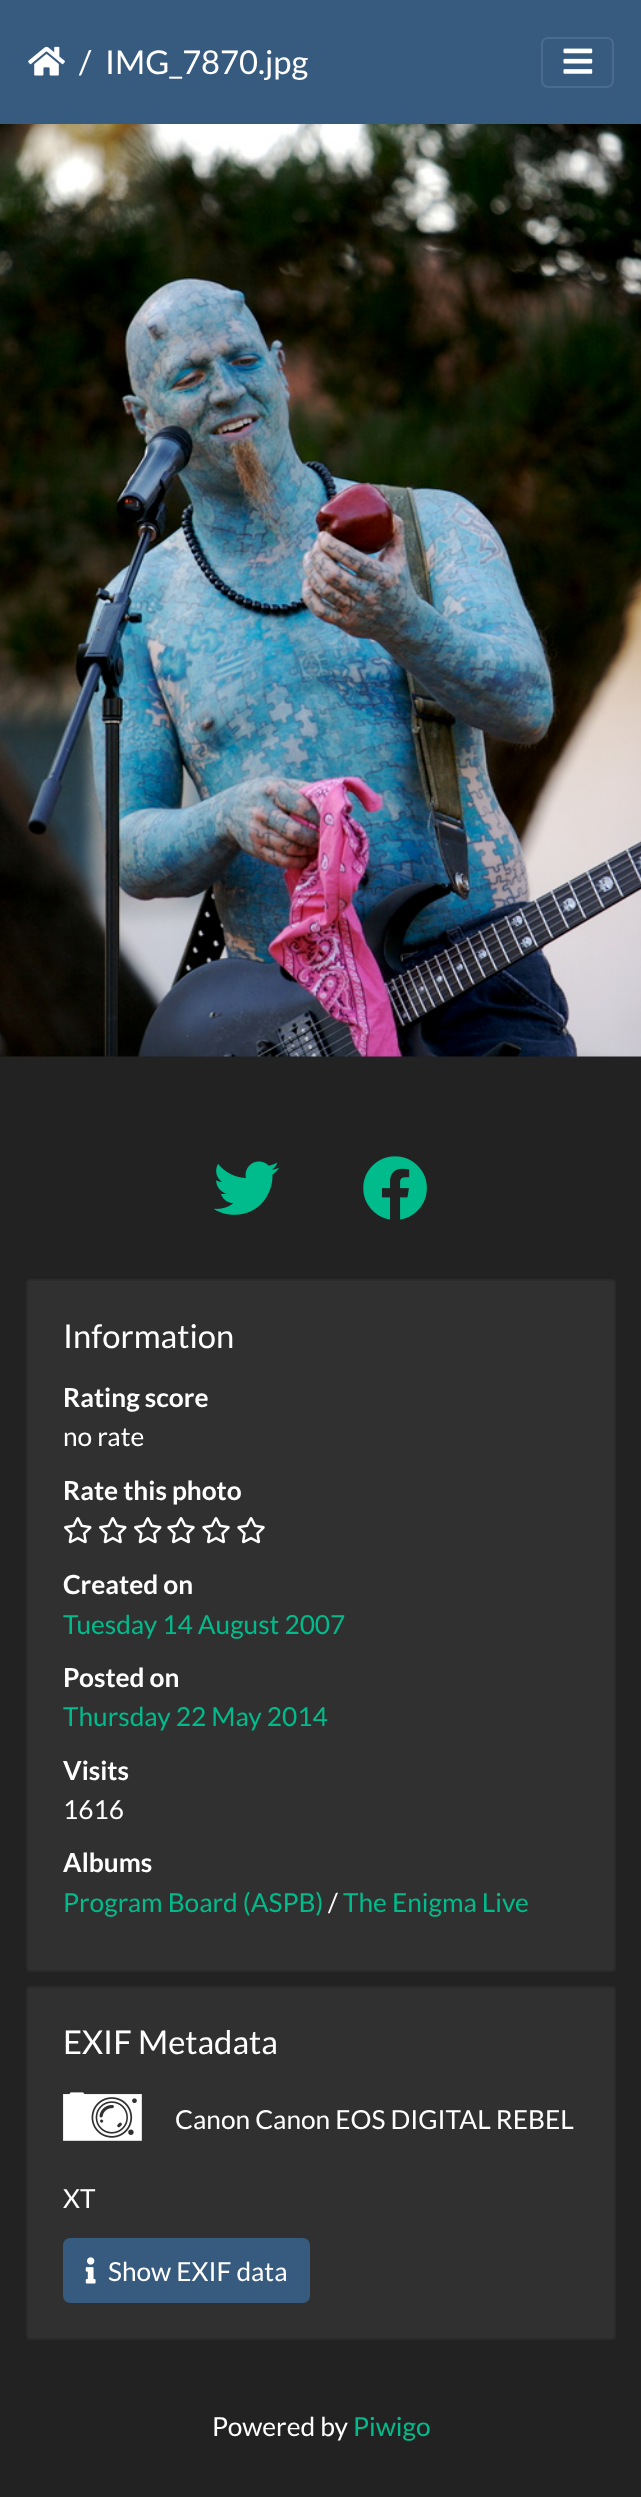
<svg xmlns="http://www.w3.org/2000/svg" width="641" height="2497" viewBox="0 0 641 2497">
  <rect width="100%" height="100%" fill="rgb(34,34,34)"/>
  <rect x="0" y="0" width="641" height="124" fill="rgb(55,90,127)"/>
  <image x="28" y="46" width="37" height="30" href="pic1.png"/>
  <g font-family="Lato" font-size="32.75" fill="rgb(255,255,255)">
    <text x="79" y="74">/</text>
    <text x="105" y="74">IMG_7870.jpg</text>
  </g>
  <rect x="542" y="38" width="71" height="49" rx="6" fill="none" stroke="rgb(75,107,140)" stroke-width="2"/>
  <image x="563" y="48" width="30" height="26" href="pic2.png"/>
  <image x="0" y="124" width="641" height="933" href="pic3.png"/>
  <image x="213" y="1161" width="66" height="54" href="pic4.png"/>
  <image x="363" y="1156" width="64" height="64" href="pic5.png"/>
  <rect x="26" y="1279" width="590" height="693" rx="4" fill="rgb(48,48,48)"/>
  <rect x="27" y="1280" width="588" height="691" rx="3" fill="none" stroke="rgba(0,0,0,0.12)" stroke-width="2"/>
  <text x="63" y="1348" font-family="Lato" font-size="32.75" fill="rgb(255,255,255)">Information</text>
  <text x="63" y="1407" font-family="Lato" font-size="26.25" font-weight="bold" fill="rgb(255,255,255)">Rating score</text>
  <text x="63" y="1446" font-family="Lato" font-size="26.25" fill="rgb(255,255,255)">no rate</text>
  <text x="63" y="1500" font-family="Lato" font-size="26.25" font-weight="bold" fill="rgb(255,255,255)">Rate this photo</text>
  <image x="64" y="1517" width="28" height="27" href="pic6.png"/>
  <image x="99" y="1517" width="28" height="27" href="pic6.png"/>
  <image x="134" y="1517" width="28" height="27" href="pic6.png"/>
  <image x="167" y="1517" width="28" height="27" href="pic7.png"/>
  <image x="202" y="1517" width="28" height="27" href="pic7.png"/>
  <image x="237" y="1517" width="28" height="27" href="pic7.png"/>
  <text x="63" y="1594" font-family="Lato" font-size="26.25" font-weight="bold" fill="rgb(255,255,255)">Created on</text>
  <text x="63" y="1634" font-family="Lato" font-size="26.25" fill="rgb(0,188,140)">Tuesday 14 August 2007</text>
  <text x="63" y="1687" font-family="Lato" font-size="26.25" font-weight="bold" fill="rgb(255,255,255)">Posted on</text>
  <text x="63" y="1726" font-family="Lato" font-size="26.25" fill="rgb(0,188,140)">Thursday 22 May 2014</text>
  <text x="63" y="1780" font-family="Lato" font-size="26.25" font-weight="bold" fill="rgb(255,255,255)">Visits</text>
  <text x="63" y="1819" font-family="Lato" font-size="26.25" fill="rgb(255,255,255)">1616</text>
  <text x="63" y="1872" font-family="Lato" font-size="26.25" font-weight="bold" fill="rgb(255,255,255)">Albums</text>
  <text x="63" y="1912" font-family="Lato" font-size="26.25" fill="rgb(0,188,140)">Program Board (ASPB)</text>
  <text x="328" y="1912" font-family="Lato" font-size="26.25" fill="rgb(255,255,255)">/</text>
  <text x="343" y="1912" font-family="Lato" font-size="26.25" fill="rgb(0,188,140)">The Enigma Live</text>
  <rect x="26" y="1986" width="590" height="354" rx="4" fill="rgb(48,48,48)"/>
  <rect x="27" y="1987" width="588" height="352" rx="3" fill="none" stroke="rgba(0,0,0,0.12)" stroke-width="2"/>
  <text x="63" y="2054" font-family="Lato" font-size="32.75" fill="rgb(255,255,255)">EXIF Metadata</text>
  <image x="63" y="2092" width="79" height="49" href="pic8.png"/>
  <g font-family="Lato" font-size="26.25" fill="rgb(255,255,255)">
    <text x="175" y="2129">Canon Canon EOS DIGITAL REBEL</text>
    <text x="63" y="2208">XT</text>
  </g>
  <rect x="64" y="2239" width="245" height="63" rx="6" fill="rgb(55,90,127)" stroke="rgb(55,90,127)" stroke-width="2"/>
  <image x="85" y="2257" width="11" height="27" href="pic9.png"/>
  <g font-family="Lato" font-size="26.25" fill="rgb(255,255,255)">
    <text x="108" y="2281">Show EXIF data</text>
    <text x="212" y="2436">Powered by</text>
  </g>
  <text x="353" y="2436" font-family="Lato" font-size="26.25" fill="rgb(0,188,140)">Piwigo</text>
</svg>
